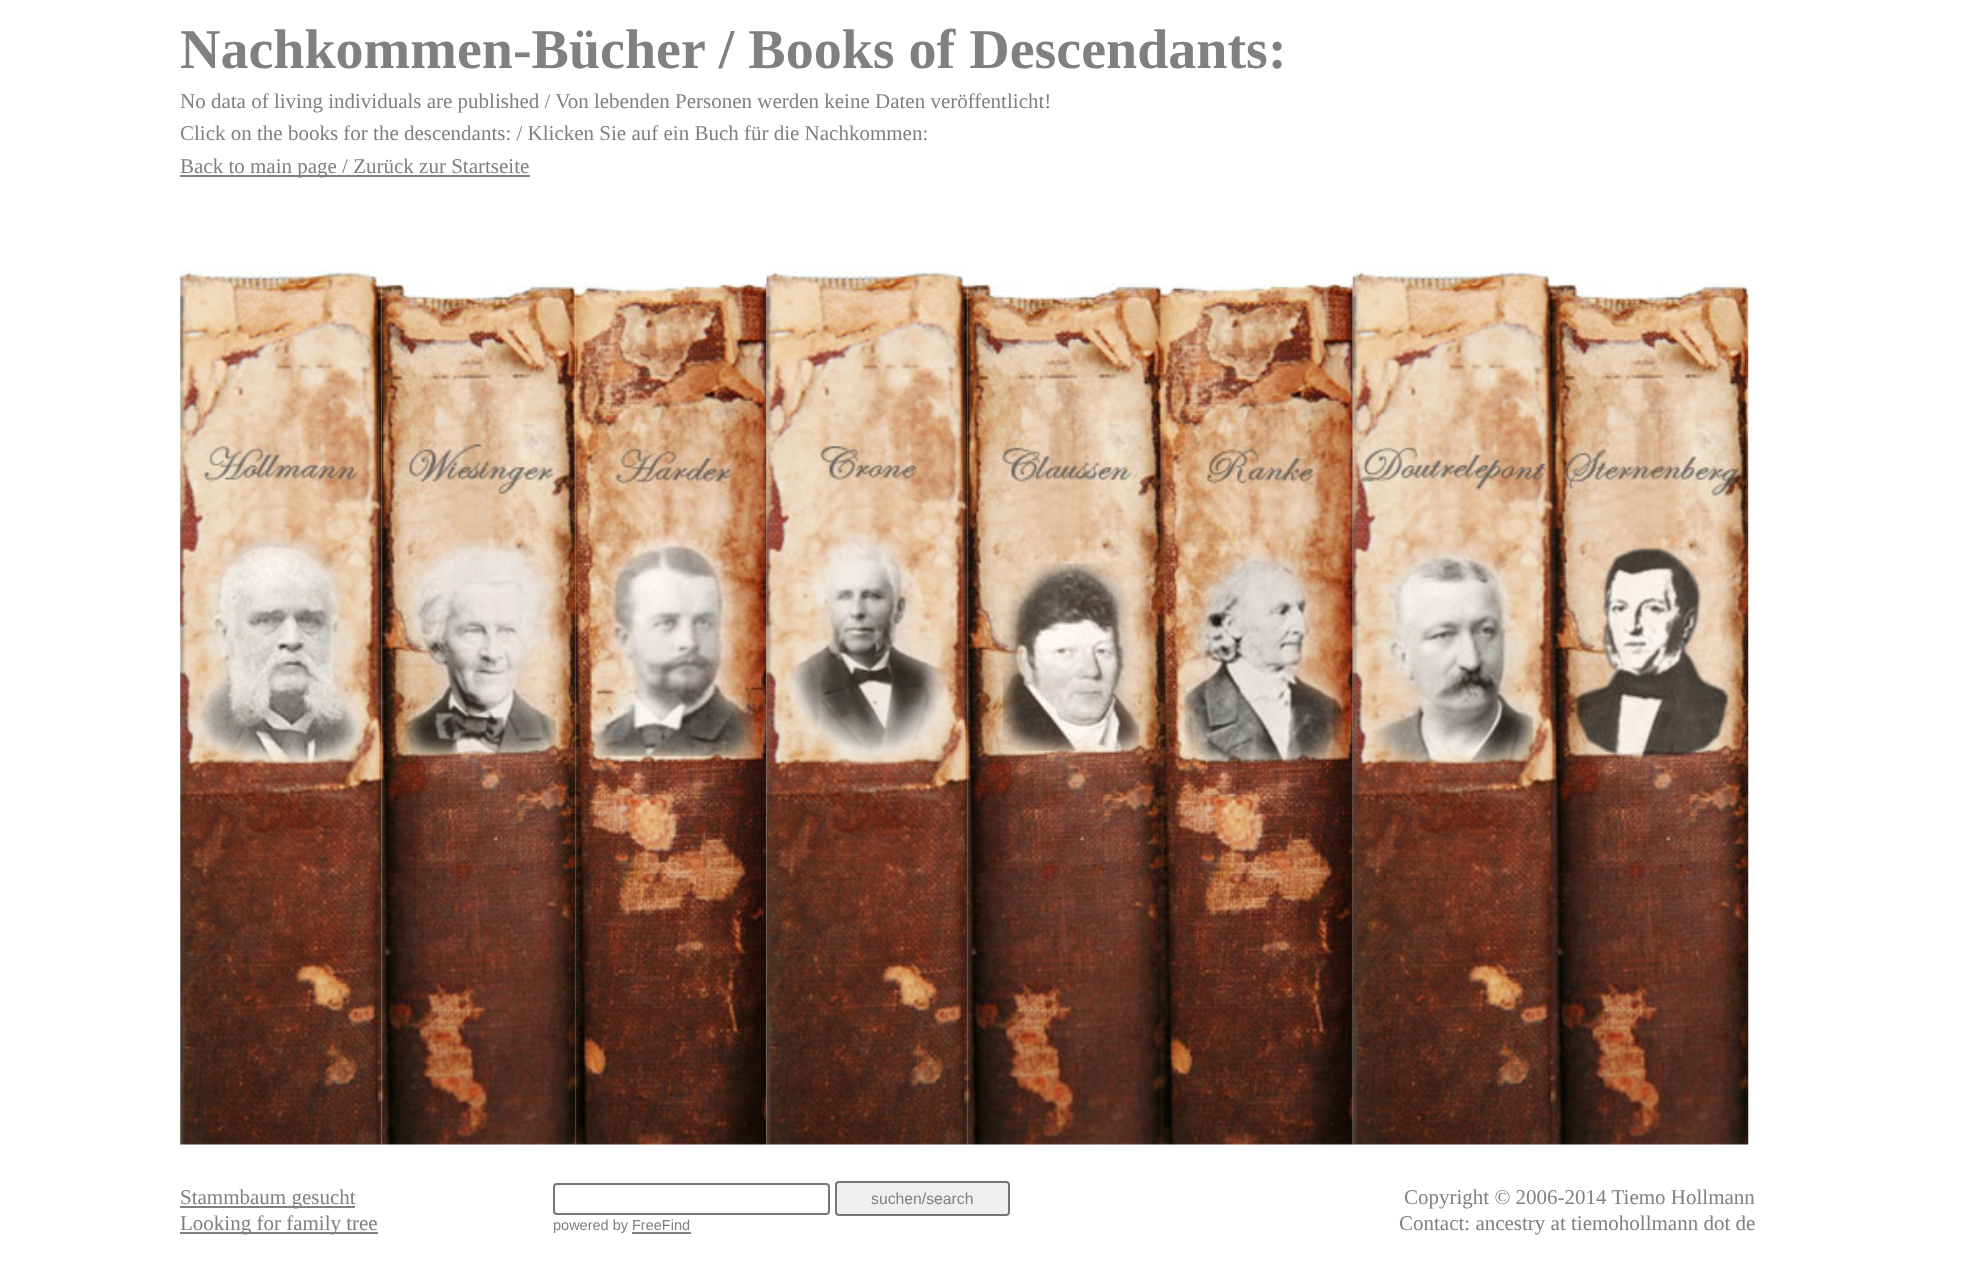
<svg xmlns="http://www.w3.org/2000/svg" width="1970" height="1268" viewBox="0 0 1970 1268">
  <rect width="100%" height="100%" fill="rgb(255,255,255)"/>
  <text x="180" y="68" font-family="Liberation Serif" font-size="56" font-weight="bold" fill="rgb(128,128,128)">Nachkommen-Bücher / Books of Descendants:</text>
  <g font-family="Liberation Serif" font-size="21" fill="rgb(128,128,128)">
    <text>
      <tspan x="180" y="108">No data of living individuals are published / Von lebenden Personen werden keine Daten veröffentlicht!</tspan>
      <tspan x="180" y="140">Click on the books for the descendants: / Klicken Sie auf ein Buch für die Nachkommen:</tspan>
    </text>
  </g>
  <rect x="180" y="175" width="350" height="2" fill="rgb(128,128,128)"/>
  <text x="180" y="173" font-family="Liberation Serif" font-size="21" fill="rgb(128,128,128)">Back to main page / Zurück zur Startseite</text>
  <image x="180" y="269" width="202" height="876" href="pic1.png"/>
  <image x="381" y="283" width="195" height="862" href="pic2.png"/>
  <image x="575" y="283" width="192" height="862" href="pic3.png"/>
  <image x="766" y="269" width="202" height="876" href="pic4.png"/>
  <image x="967" y="283" width="195" height="862" href="pic5.png"/>
  <image x="1162" y="283" width="191" height="862" href="pic6.png"/>
  <image x="1352" y="269" width="202" height="876" href="pic7.png"/>
  <image x="1554" y="283" width="195" height="862" href="pic8.png"/>
  <rect x="180" y="1206" width="175" height="2" fill="rgb(128,128,128)"/>
  <text x="180" y="1204" font-family="Liberation Serif" font-size="21" fill="rgb(128,128,128)">Stammbaum gesucht</text>
  <rect x="180" y="1232" width="198" height="2" fill="rgb(128,128,128)"/>
  <text x="180" y="1230" font-family="Liberation Serif" font-size="21" fill="rgb(128,128,128)">Looking for family tree</text>
  <rect x="554" y="1184" width="275" height="30" rx="3" fill="none" stroke="rgb(118,118,118)" stroke-width="2"/>
  <rect x="836" y="1182" width="173" height="33" rx="3" fill="rgb(239,239,239)" stroke="rgb(118,118,118)" stroke-width="2"/>
  <text x="871" y="1204" font-family="Liberation Sans" font-size="15.75" fill="rgb(128,128,128)">suchen/search</text>
  <text x="553" y="1230" font-family="Liberation Sans" font-size="14.5" fill="rgb(128,128,128)">powered by FreeFind</text>
  <rect x="632" y="1232" width="59" height="2" fill="rgb(128,128,128)"/>
  <g font-family="Liberation Serif" font-size="21" fill="rgb(128,128,128)">
    <text x="1404" y="1204">Copyright © 2006-2014 Tiemo Hollmann</text>
    <text x="1399" y="1230">Contact: ancestry at tiemohollmann dot de</text>
  </g>
</svg>
